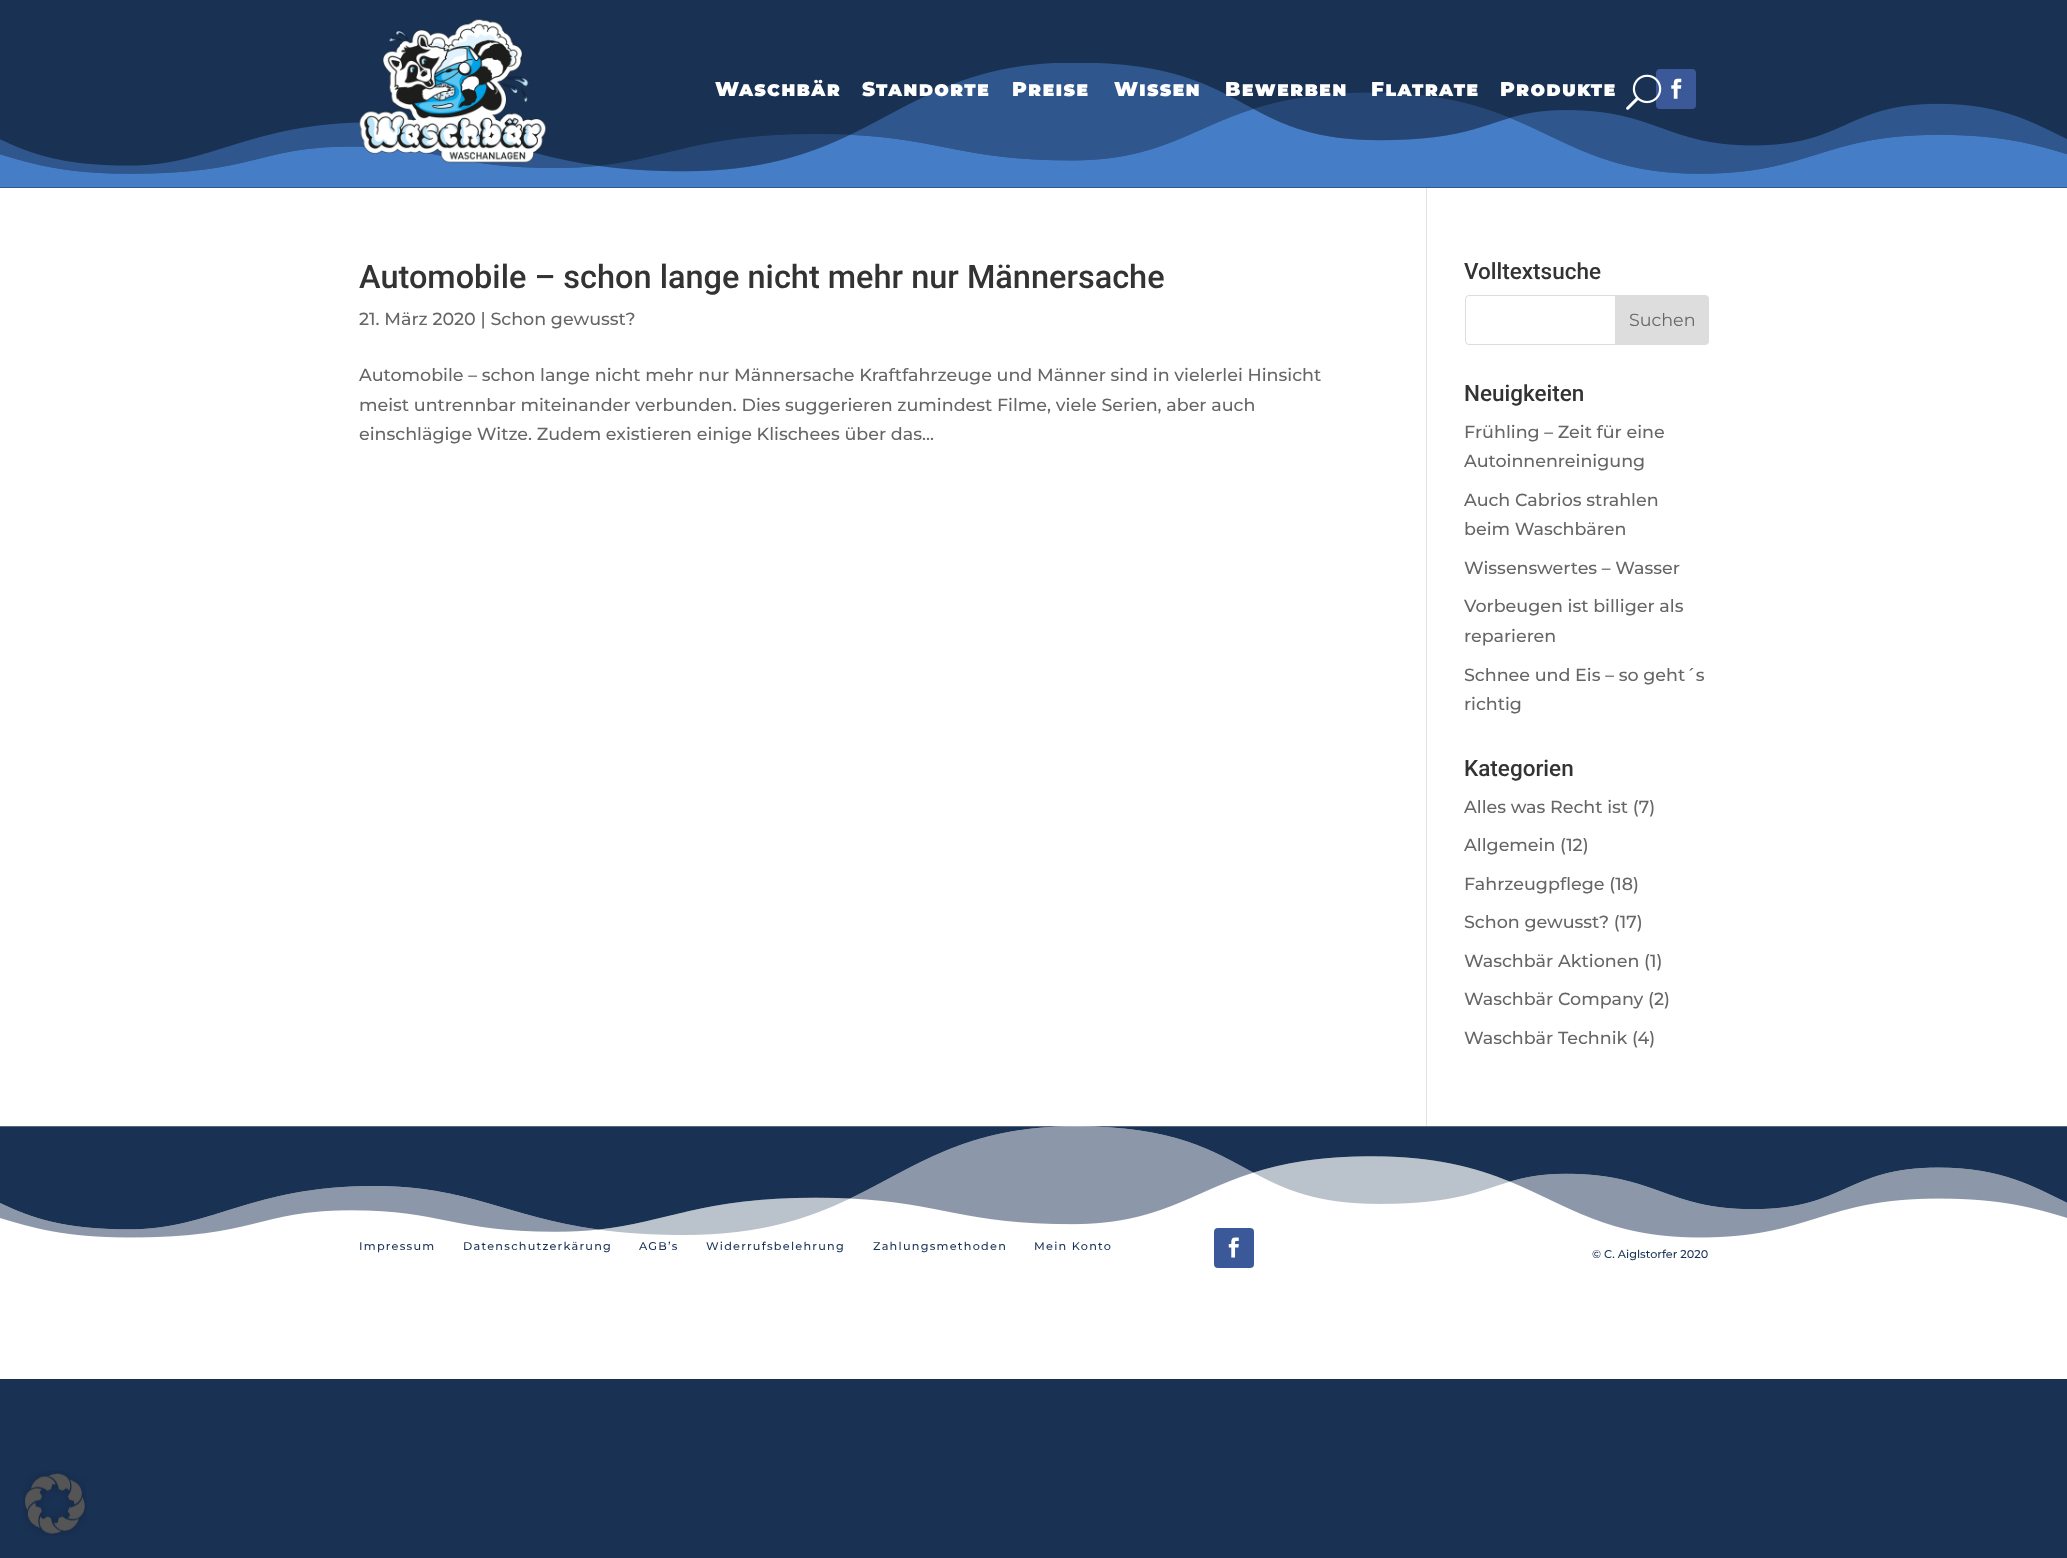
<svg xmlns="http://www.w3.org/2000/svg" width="2067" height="1558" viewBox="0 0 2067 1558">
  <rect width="100%" height="100%" fill="rgb(25,49,83)"/>
  <image x="0" y="63" width="2067" height="125" href="pic1.png"/>
  <image x="358" y="18" width="189" height="146" href="pic2.png"/>
  <g font-family="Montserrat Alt" font-size="20" font-weight="900" letter-spacing="1.25" fill="rgb(255,255,255)">
    <text x="715" y="96">Waschbär</text>
    <text x="862" y="96">Standorte</text>
    <text x="1012" y="96">Preise</text>
    <text x="1114" y="96">Wissen</text>
    <text x="1225" y="96">Bewerben</text>
    <text x="1371" y="96">Flatrate</text>
    <text x="1500" y="96">Produkte</text>
  </g>
  <rect x="1656" y="69" width="40" height="40" rx="4" fill="rgb(59,89,152)"/>
  <image x="1626" y="74" width="36" height="36" href="pic3.png"/>
  <image x="1671" y="78" width="11" height="21" href="pic4.png"/>
  <rect x="0" y="188" width="2067" height="1191" fill="rgb(255,255,255)"/>
  <rect x="1426" y="188" width="1" height="938" fill="rgb(226,226,226)"/>
  <text x="359" y="288" font-family="Roboto" font-size="32.5" font-weight="500" fill="rgb(51,51,51)">Automobile – schon lange nicht mehr nur Männersache</text>
  <g font-family="Montserrat" font-size="17.5" font-weight="500" fill="rgb(102,102,102)">
    <text x="359" y="325">21. März 2020 | Schon gewusst?</text>
    <text>
      <tspan x="359" y="381">Automobile – schon lange nicht mehr nur Männersache Kraftfahrzeuge und Männer sind in vielerlei Hinsicht</tspan>
      <tspan x="359" y="411">meist untrennbar miteinander verbunden. Dies suggerieren zumindest Filme, viele Serien, aber auch</tspan>
      <tspan x="359" y="440">einschlägige Witze. Zudem existieren einige Klischees über das...</tspan>
    </text>
  </g>
  <text x="1464" y="279" font-family="Roboto" font-size="22.5" font-weight="500" fill="rgb(51,51,51)">Volltextsuche</text>
  <rect x="1465.5" y="295.5" width="243" height="49" rx="3.5" fill="none" stroke="rgb(221,221,221)"/>
  <path d="M1615.5 295.5H1705C1707 295.5 1708.5 297 1708.5 299V341C1708.5 343 1707 344.5 1705 344.5H1615.5Z" fill="rgb(221,221,221)" stroke="rgb(221,221,221)"/>
  <text x="1629" y="326" font-family="Montserrat" font-size="17.5" fill="rgb(102,102,102)">Suchen</text>
  <text x="1464" y="401" font-family="Roboto" font-size="22.5" font-weight="500" fill="rgb(51,51,51)">Neuigkeiten</text>
  <g font-family="Montserrat" font-size="17.5" font-weight="500" fill="rgb(102,102,102)">
    <text>
      <tspan x="1464" y="438">Frühling – Zeit für eine</tspan>
      <tspan x="1464" y="467">Autoinnenreinigung</tspan>
    </text>
    <text>
      <tspan x="1464" y="506">Auch Cabrios strahlen</tspan>
      <tspan x="1464" y="535">beim Waschbären</tspan>
    </text>
    <text x="1464" y="574">Wissenswertes – Wasser</text>
    <text>
      <tspan x="1464" y="612">Vorbeugen ist billiger als</tspan>
      <tspan x="1464" y="642">reparieren</tspan>
    </text>
    <text>
      <tspan x="1464" y="681">Schnee und Eis – so geht´s</tspan>
      <tspan x="1464" y="710">richtig</tspan>
    </text>
  </g>
  <text x="1464" y="776" font-family="Roboto" font-size="22.5" font-weight="500" fill="rgb(51,51,51)">Kategorien</text>
  <g font-family="Montserrat" font-size="17.5" font-weight="500" fill="rgb(102,102,102)">
    <text x="1464" y="813">Alles was Recht ist (7)</text>
    <text x="1464" y="851">Allgemein (12)</text>
    <text x="1464" y="890">Fahrzeugpflege (18)</text>
    <text x="1464" y="928">Schon gewusst? (17)</text>
    <text x="1464" y="967">Waschbär Aktionen (1)</text>
    <text x="1464" y="1005">Waschbär Company (2)</text>
    <text x="1464" y="1044">Waschbär Technik (4)</text>
  </g>
  <image x="0" y="1126" width="2067" height="112" href="pic5.png"/>
  <g font-family="Montserrat" font-size="11.25" font-weight="500" letter-spacing="1.25" fill="rgb(25,49,83)">
    <text x="359" y="1250">Impressum</text>
    <text x="463" y="1250">Datenschutzerkärung</text>
    <text x="639" y="1250">AGB’s</text>
    <text x="706" y="1250">Widerrufsbelehrung</text>
    <text x="873" y="1250">Zahlungsmethoden</text>
    <text x="1034" y="1250">Mein Konto</text>
  </g>
  <rect x="1214" y="1228" width="40" height="40" rx="4" fill="rgb(59,89,152)"/>
  <image x="1228" y="1237" width="11" height="21" href="pic6.png"/>
  <text x="1592" y="1258" font-family="Montserrat" font-size="11.25" font-weight="500" fill="rgb(25,49,83)">© C. Aiglstorfer 2020</text>
  <image x="23" y="1471" width="64" height="65" href="pic7.png"/>
</svg>
